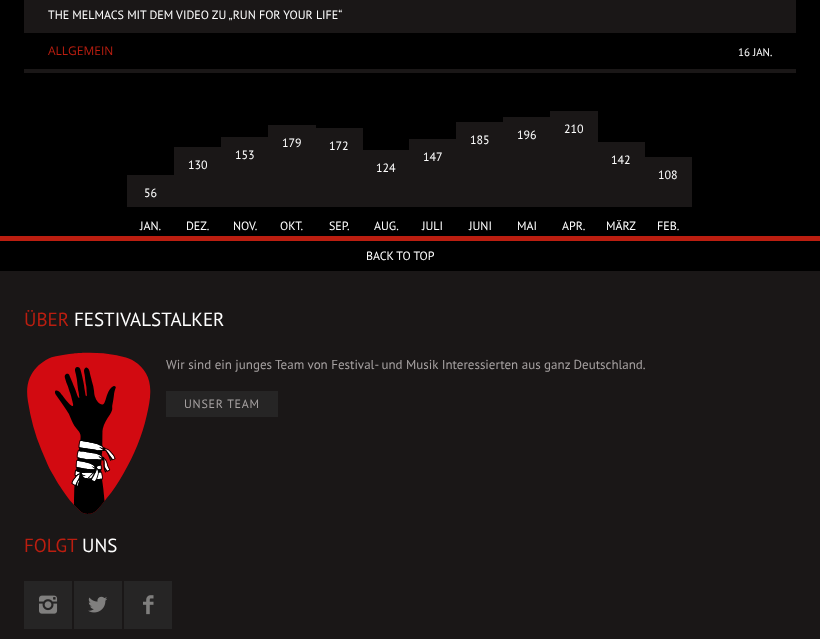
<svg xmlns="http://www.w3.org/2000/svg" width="820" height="639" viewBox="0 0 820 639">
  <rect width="100%" height="100%" fill="rgb(0,0,0)"/>
  <rect x="24" y="69" width="772" height="4" fill="rgb(26,23,23)"/>
  <rect x="24" y="0" width="772" height="33" fill="rgb(26,23,23)"/>
  <text x="48" y="19" font-family="PT Sans" font-size="12" fill="rgb(255,255,255)">THE MELMACS MIT DEM VIDEO ZU „RUN FOR YOUR LIFE“</text>
  <text x="48" y="55" font-family="Open Sans" font-size="12" fill="rgb(187,30,16)">ALLGEMEIN</text>
  <text x="738" y="56" font-family="PT Sans" font-size="11" fill="rgb(255,255,255)">16 JAN.</text>
  <rect x="127" y="175" width="47" height="32" fill="rgb(26,23,23)"/>
  <g font-family="PT Sans" font-size="12" fill="rgb(255,255,255)">
    <text x="144" y="197">56</text>
    <text x="140" y="230">JAN.</text>
  </g>
  <rect x="174" y="147" width="47" height="60" fill="rgb(26,23,23)"/>
  <g font-family="PT Sans" font-size="12" fill="rgb(255,255,255)">
    <text x="188" y="169">130</text>
    <text x="186" y="230">DEZ.</text>
  </g>
  <rect x="221" y="137" width="47" height="70" fill="rgb(26,23,23)"/>
  <g font-family="PT Sans" font-size="12" fill="rgb(255,255,255)">
    <text x="235" y="159">153</text>
    <text x="233" y="230">NOV.</text>
  </g>
  <rect x="268" y="125" width="48" height="82" fill="rgb(26,23,23)"/>
  <g font-family="PT Sans" font-size="12" fill="rgb(255,255,255)">
    <text x="282" y="147">179</text>
    <text x="280" y="230">OKT.</text>
  </g>
  <rect x="316" y="128" width="47" height="79" fill="rgb(26,23,23)"/>
  <g font-family="PT Sans" font-size="12" fill="rgb(255,255,255)">
    <text x="329" y="150">172</text>
    <text x="329" y="230">SEP.</text>
  </g>
  <rect x="363" y="150" width="46" height="57" fill="rgb(26,23,23)"/>
  <g font-family="PT Sans" font-size="12" fill="rgb(255,255,255)">
    <text x="376" y="172">124</text>
    <text x="374" y="230">AUG.</text>
  </g>
  <rect x="409" y="139" width="47" height="68" fill="rgb(26,23,23)"/>
  <g font-family="PT Sans" font-size="12" fill="rgb(255,255,255)">
    <text x="423" y="161">147</text>
    <text x="422" y="230">JULI</text>
  </g>
  <rect x="456" y="122" width="47" height="85" fill="rgb(26,23,23)"/>
  <g font-family="PT Sans" font-size="12" fill="rgb(255,255,255)">
    <text x="470" y="144">185</text>
    <text x="469" y="230">JUNI</text>
  </g>
  <rect x="503" y="117" width="47" height="90" fill="rgb(26,23,23)"/>
  <g font-family="PT Sans" font-size="12" fill="rgb(255,255,255)">
    <text x="517" y="139">196</text>
    <text x="517" y="230">MAI</text>
  </g>
  <rect x="550" y="111" width="48" height="96" fill="rgb(26,23,23)"/>
  <g font-family="PT Sans" font-size="12" fill="rgb(255,255,255)">
    <text x="564" y="133">210</text>
    <text x="562" y="230">APR.</text>
  </g>
  <rect x="598" y="142" width="47" height="65" fill="rgb(26,23,23)"/>
  <g font-family="PT Sans" font-size="12" fill="rgb(255,255,255)">
    <text x="611" y="164">142</text>
    <text x="606" y="230">MÄRZ</text>
  </g>
  <rect x="645" y="157" width="47" height="50" fill="rgb(26,23,23)"/>
  <g font-family="PT Sans" font-size="12" fill="rgb(255,255,255)">
    <text x="658" y="179">108</text>
    <text x="657" y="230">FEB.</text>
    <text x="366" y="260">BACK TO TOP</text>
  </g>
  <rect x="0" y="236" width="820" height="5" fill="rgb(187,30,16)"/>
  <rect x="0" y="271" width="820" height="368" fill="rgb(26,23,23)"/>
  <text x="24" y="326" font-family="PT Sans" font-size="19" fill="rgb(187,30,16)">ÜBER</text>
  <text x="74" y="326" font-family="PT Sans" font-size="19" fill="rgb(255,255,255)">FESTIVALSTALKER</text>
  <image x="27" y="352" width="124" height="162" href="pic1.png"/>
  <text x="166" y="369" font-family="PT Sans" font-size="13" fill="rgb(166,161,161)">Wir sind ein junges Team von Festival- und Musik Interessierten aus ganz Deutschland.</text>
  <rect x="166" y="391" width="112" height="26" fill="rgb(38,37,37)"/>
  <text x="184" y="408" font-family="PT Sans" font-size="12" letter-spacing="0.75" fill="rgb(166,161,161)">UNSER TEAM</text>
  <text x="24" y="552" font-family="PT Sans" font-size="19" fill="rgb(187,30,16)">FOLGT</text>
  <text x="82" y="552" font-family="PT Sans" font-size="19" fill="rgb(255,255,255)">UNS</text>
  <rect x="24" y="581" width="48" height="48" fill="rgb(38,37,37)"/>
  <image x="39" y="595" width="19" height="19" href="pic2.png"/>
  <rect x="74" y="581" width="48" height="48" fill="rgb(38,37,37)"/>
  <image x="88" y="596" width="19" height="17" href="pic3.png"/>
  <rect x="124" y="581" width="48" height="48" fill="rgb(38,37,37)"/>
  <image x="143" y="595" width="11" height="20" href="pic4.png"/>
</svg>
